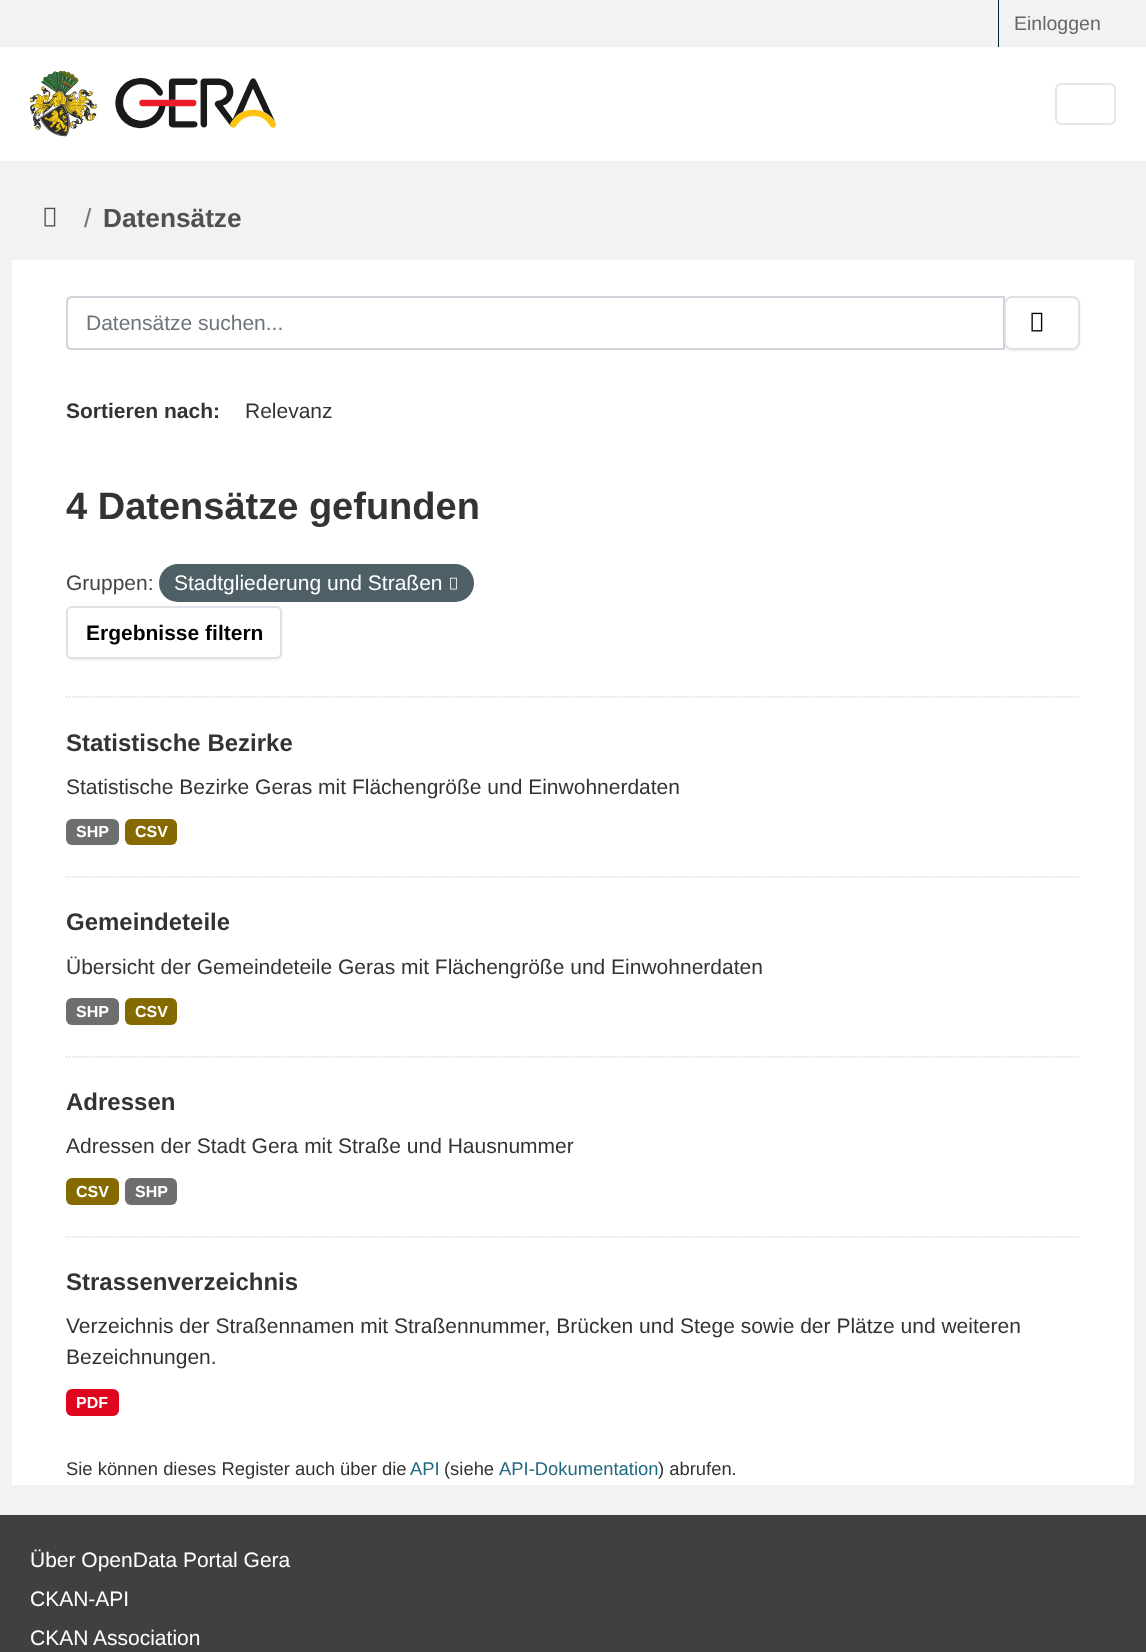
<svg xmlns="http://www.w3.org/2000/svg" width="1146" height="1652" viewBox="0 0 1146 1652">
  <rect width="100%" height="100%" fill="rgb(255,255,255)"/>
  <rect x="0" y="0" width="1146" height="47" fill="rgb(242,242,242)"/>
  <rect x="998" y="0" width="1" height="47" fill="rgb(0,35,46)"/>
  <text x="1014" y="30" font-family="Liberation Sans" font-size="19.5" fill="rgb(102,102,102)">Einloggen</text>
  <image x="30" y="71" width="246" height="66" href="pic1.png"/>
  <rect x="1056" y="84" width="59" height="40" rx="5" fill="none" stroke="rgb(230,230,230)" stroke-width="2"/>
  <rect x="0" y="161" width="1146" height="1354" fill="rgb(242,242,242)"/>
  <image x="44" y="207" width="12" height="20" href="pic2.png"/>
  <text x="84" y="227" font-family="Liberation Sans" font-size="26.25" fill="rgb(108,117,125)">/</text>
  <text x="103" y="227" font-family="Liberation Sans" font-size="26.25" font-weight="bold" fill="rgb(80,80,80)">Datensätze</text>
  <rect x="12" y="260" width="1122" height="1225" fill="rgb(255,255,255)"/>
  <path d="M66 697H1080" fill="none" stroke="rgb(221,221,221)" stroke-width="1.5" stroke-dasharray="1.5 1.5"/>
  <path d="M72 297H1004V349H72C69 349 67 347 67 344V302C67 299 69 297 72 297Z" fill="none" stroke="rgb(206,212,218)" stroke-width="2"/>
  <text x="86" y="330" font-family="Liberation Sans" font-size="21" fill="rgb(108,117,125)">Datensätze suchen...</text>
  <rect x="1004" y="297" width="76" height="54" rx="8" fill="rgba(0,0,0,0.07)" filter="blur(1px)"/>
  <rect x="1005" y="297" width="74" height="52" rx="7" fill="rgb(255,255,255)" stroke="rgb(222,226,230)" stroke-width="2"/>
  <image x="1031" y="312" width="12" height="20" href="pic3.png"/>
  <text x="66" y="418" font-family="Liberation Sans" font-size="21" font-weight="bold" fill="rgb(51,51,51)">Sortieren nach:</text>
  <text x="245" y="418" font-family="Liberation Sans" font-size="21" fill="rgb(51,51,51)">Relevanz</text>
  <text x="66" y="519" font-family="Liberation Sans" font-size="38" font-weight="bold" fill="rgb(51,51,51)">4 Datensätze gefunden</text>
  <text x="66" y="590" font-family="Liberation Sans" font-size="21" fill="rgb(68,68,68)">Gruppen:</text>
  <rect x="159" y="564" width="315" height="38" rx="19" fill="rgb(78,95,101)"/>
  <text x="174" y="590" font-family="Liberation Sans" font-size="21" fill="rgb(255,255,255)">Stadtgliederung und Straßen</text>
  <image x="450" y="577" width="7" height="13" href="pic4.png"/>
  <rect x="66" y="608" width="216" height="52" rx="6" fill="rgba(0,0,0,0.07)" filter="blur(1px)"/>
  <rect x="67" y="607" width="214" height="51" rx="5" fill="rgb(255,255,255)" stroke="rgb(222,226,230)" stroke-width="2"/>
  <text x="86" y="640" font-family="Liberation Sans" font-size="21" font-weight="bold" fill="rgb(0,0,0)">Ergebnisse filtern</text>
  <path d="M66 877H1080" fill="none" stroke="rgb(221,221,221)" stroke-width="1.5" stroke-dasharray="1.5 1.5"/>
  <text x="66" y="751" font-family="Liberation Sans" font-size="24" font-weight="bold" fill="rgb(51,51,51)">Statistische Bezirke</text>
  <text x="66" y="794" font-family="Liberation Sans" font-size="21" fill="rgb(51,51,51)">Statistische Bezirke Geras mit Flächengröße und Einwohnerdaten</text>
  <rect x="66" y="819" width="53" height="26" rx="6" fill="rgb(110,110,110)"/>
  <text x="76" y="837" font-family="Liberation Sans" font-size="16" font-weight="bold" fill="rgb(255,255,255)">SHP</text>
  <rect x="125" y="819" width="52" height="26" rx="6" fill="rgb(133,106,0)"/>
  <text x="135" y="837" font-family="Liberation Sans" font-size="16" font-weight="bold" fill="rgb(255,255,255)">CSV</text>
  <path d="M66 1057H1080" fill="none" stroke="rgb(221,221,221)" stroke-width="1.5" stroke-dasharray="1.5 1.5"/>
  <text x="66" y="930" font-family="Liberation Sans" font-size="24" font-weight="bold" fill="rgb(51,51,51)">Gemeindeteile</text>
  <text x="66" y="974" font-family="Liberation Sans" font-size="21" fill="rgb(51,51,51)">Übersicht der Gemeindeteile Geras mit Flächengröße und Einwohnerdaten</text>
  <rect x="66" y="998" width="53" height="27" rx="6" fill="rgb(110,110,110)"/>
  <text x="76" y="1017" font-family="Liberation Sans" font-size="16" font-weight="bold" fill="rgb(255,255,255)">SHP</text>
  <rect x="125" y="998" width="52" height="27" rx="6" fill="rgb(133,106,0)"/>
  <text x="135" y="1017" font-family="Liberation Sans" font-size="16" font-weight="bold" fill="rgb(255,255,255)">CSV</text>
  <path d="M66 1237H1080" fill="none" stroke="rgb(221,221,221)" stroke-width="1.5" stroke-dasharray="1.5 1.5"/>
  <text x="66" y="1110" font-family="Liberation Sans" font-size="24" font-weight="bold" fill="rgb(51,51,51)">Adressen</text>
  <text x="66" y="1153" font-family="Liberation Sans" font-size="21" fill="rgb(51,51,51)">Adressen der Stadt Gera mit Straße und Hausnummer</text>
  <rect x="66" y="1178" width="53" height="27" rx="6" fill="rgb(133,106,0)"/>
  <text x="76" y="1197" font-family="Liberation Sans" font-size="16" font-weight="bold" fill="rgb(255,255,255)">CSV</text>
  <rect x="125" y="1178" width="52" height="27" rx="6" fill="rgb(110,110,110)"/>
  <text x="135" y="1197" font-family="Liberation Sans" font-size="16" font-weight="bold" fill="rgb(255,255,255)">SHP</text>
  <text x="66" y="1290" font-family="Liberation Sans" font-size="24" font-weight="bold" fill="rgb(51,51,51)">Strassenverzeichnis</text>
  <g font-family="Liberation Sans" font-size="21" fill="rgb(51,51,51)">
    <text>
      <tspan x="66" y="1333">Verzeichnis der Straßennamen mit Straßennummer, Brücken und Stege sowie der Plätze und weiteren</tspan>
      <tspan x="66" y="1364">Bezeichnungen.</tspan>
    </text>
  </g>
  <rect x="66" y="1389" width="53" height="27" rx="6" fill="rgb(224,5,30)"/>
  <text x="76" y="1408" font-family="Liberation Sans" font-size="16" font-weight="bold" fill="rgb(255,255,255)">PDF</text>
  <text x="66" y="1475" font-family="Liberation Sans" font-size="18.4" fill="rgb(51,51,51)">Sie können dieses Register auch über die</text>
  <text x="410" y="1475" font-family="Liberation Sans" font-size="18.4" fill="rgb(32,107,130)">API</text>
  <text x="444" y="1475" font-family="Liberation Sans" font-size="18.4" fill="rgb(51,51,51)">(siehe</text>
  <text x="499" y="1475" font-family="Liberation Sans" font-size="18.4" fill="rgb(32,107,130)">API-Dokumentation</text>
  <text x="658" y="1475" font-family="Liberation Sans" font-size="18.4" fill="rgb(51,51,51)">) abrufen.</text>
  <rect x="0" y="1515" width="1146" height="137" fill="rgb(64,64,64)"/>
  <g font-family="Liberation Sans" font-size="21" fill="rgb(255,255,255)">
    <text>
      <tspan x="30" y="1567">Über OpenData Portal Gera</tspan>
      <tspan x="30" y="1606">CKAN-API</tspan>
      <tspan x="30" y="1645">CKAN Association</tspan>
    </text>
  </g>
</svg>
